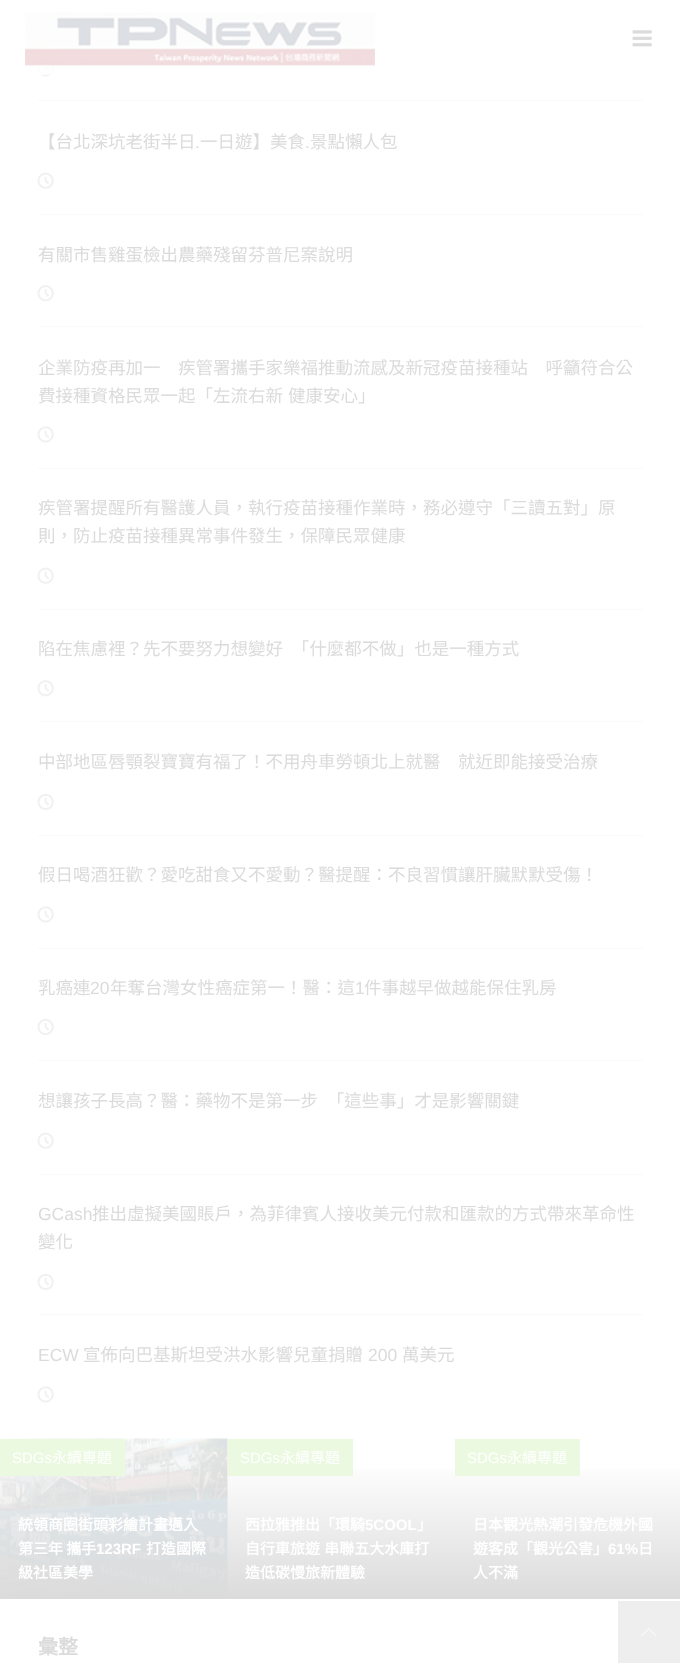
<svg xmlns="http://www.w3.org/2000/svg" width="680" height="1663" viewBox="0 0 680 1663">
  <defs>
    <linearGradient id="g1" gradientUnits="userSpaceOnUse" x1="114" y1="1459" x2="114" y2="1599"><stop offset="0" stop-color="rgb(219,219,219)" stop-opacity="0"/><stop offset="1" stop-color="rgb(219,219,219)"/></linearGradient>
    <linearGradient id="g2" gradientUnits="userSpaceOnUse" x1="341" y1="1459" x2="341" y2="1599"><stop offset="0" stop-color="rgb(255,255,255)"/><stop offset="1" stop-color="rgb(219,219,219)"/></linearGradient>
    <linearGradient id="g3" gradientUnits="userSpaceOnUse" x1="569" y1="1459" x2="569" y2="1599"><stop offset="0" stop-color="rgb(255,255,255)"/><stop offset="1" stop-color="rgb(219,219,219)"/></linearGradient>
  </defs>
  <rect width="100%" height="100%" fill="rgb(255,255,255)"/>
  <image x="37" y="65" width="17" height="12" href="pic3.png"/>
  <rect x="37" y="65" width="17" height="10" fill="rgba(255,255,255,0.8)"/>
  <image x="25" y="12" width="350" height="55" href="pic1.png"/>
  <image x="632" y="30" width="20" height="17" href="pic2.png"/>
  <rect x="38" y="100" width="605" height="1" fill="rgb(250,250,250)"/>
  <rect x="38" y="214" width="605" height="1" fill="rgb(250,250,250)"/>
  <text x="38" y="148" font-family="Noto Sans CJK TC" font-size="17.5" fill="rgb(219,219,219)">【台北深坑老街半日</text>
  <text x="195" y="148" font-family="Liberation Sans" font-size="17.5" fill="rgb(219,219,219)">.</text>
  <text x="200" y="148" font-family="Noto Sans CJK TC" font-size="17.5" fill="rgb(219,219,219)">一日遊】美食</text>
  <text x="305" y="148" font-family="Liberation Sans" font-size="17.5" fill="rgb(219,219,219)">.</text>
  <text x="310" y="148" font-family="Noto Sans CJK TC" font-size="17.5" fill="rgb(219,219,219)">景點懶人包</text>
  <image x="37" y="172" width="17" height="17" href="pic4.png"/>
  <rect x="38" y="326" width="605" height="1" fill="rgb(250,250,250)"/>
  <text x="38" y="261" font-family="Noto Sans CJK TC" font-size="17.5" fill="rgb(219,219,219)">有關市售雞蛋檢出農藥殘留芬普尼案說明</text>
  <image x="37" y="285" width="17" height="17" href="pic5.png"/>
  <rect x="38" y="468" width="605" height="1" fill="rgb(250,250,250)"/>
  <g font-family="Noto Sans CJK TC" font-size="17.5" fill="rgb(219,219,219)">
    <text>
      <tspan x="38" y="374">企業防疫再加一　疾管署攜手家樂福推動流感及新冠疫苗接種站　呼籲符合公</tspan>
      <tspan x="38" y="402" word-spacing="1">費接種資格民眾一起「左流右新 健康安心」</tspan>
    </text>
  </g>
  <image x="37" y="426" width="17" height="17" href="pic6.png"/>
  <rect x="38" y="609" width="605" height="1" fill="rgb(250,250,250)"/>
  <g font-family="Noto Sans CJK TC" font-size="17.5" fill="rgb(219,219,219)">
    <text>
      <tspan x="38" y="514">疾管署提醒所有醫護人員，執行疫苗接種作業時，務必遵守「三讀五對」原</tspan>
      <tspan x="38" y="542">則，防止疫苗接種異常事件發生，保障民眾健康</tspan>
    </text>
  </g>
  <image x="37" y="567" width="17" height="17" href="pic4.png"/>
  <rect x="38" y="721" width="605" height="1" fill="rgb(250,250,250)"/>
  <text x="38" y="655" font-family="Noto Sans CJK TC" font-size="17.5" fill="rgb(219,219,219)">陷在焦慮裡？先不要努力想變好　「什麼都不做」也是一種方式</text>
  <image x="37" y="680" width="17" height="17" href="pic5.png"/>
  <rect x="38" y="835" width="605" height="1" fill="rgb(250,250,250)"/>
  <text x="38" y="768" font-family="Noto Sans CJK TC" font-size="17.5" fill="rgb(219,219,219)">中部地區唇顎裂寶寶有福了！不用舟車勞頓北上就醫　就近即能接受治療</text>
  <image x="37" y="793" width="17" height="18" href="pic7.png"/>
  <rect x="38" y="948" width="605" height="1" fill="rgb(250,250,250)"/>
  <text x="38" y="881" font-family="Noto Sans CJK TC" font-size="17.5" fill="rgb(219,219,219)">假日喝酒狂歡？愛吃甜食又不愛動？醫提醒：不良習慣讓肝臟默默受傷！</text>
  <image x="37" y="906" width="17" height="17" href="pic6.png"/>
  <rect x="38" y="1060" width="605" height="1" fill="rgb(250,250,250)"/>
  <text x="38" y="994" font-family="Noto Sans CJK TC" font-size="17.5" fill="rgb(219,219,219)">乳癌連</text>
  <text x="90" y="994" font-family="Liberation Sans" font-size="17.5" fill="rgb(219,219,219)">20</text>
  <text x="110" y="994" font-family="Noto Sans CJK TC" font-size="17.5" fill="rgb(219,219,219)">年奪台灣女性癌症第一！醫：這</text>
  <text x="355" y="994" font-family="Liberation Sans" font-size="17.5" fill="rgb(219,219,219)">1</text>
  <text x="364" y="994" font-family="Noto Sans CJK TC" font-size="17.5" fill="rgb(219,219,219)">件事越早做越能保住乳房</text>
  <image x="37" y="1018" width="17" height="18" href="pic7.png"/>
  <rect x="38" y="1174" width="605" height="1" fill="rgb(250,250,250)"/>
  <text x="38" y="1107" font-family="Noto Sans CJK TC" font-size="17.5" fill="rgb(219,219,219)">想讓孩子長高？醫：藥物不是第一步　「這些事」才是影響關鍵</text>
  <image x="37" y="1132" width="17" height="17" href="pic4.png"/>
  <rect x="38" y="1314" width="605" height="1" fill="rgb(250,250,250)"/>
  <text x="38" y="1220" font-family="Liberation Sans" font-size="17.5" fill="rgb(219,219,219)">GCash</text>
  <g font-family="Noto Sans CJK TC" font-size="17.5" fill="rgb(219,219,219)">
    <text x="92" y="1220">推出虛擬美國賬戶，為菲律賓人接收美元付款和匯款的方式帶來革命性</text>
    <text x="38" y="1248">變化</text>
  </g>
  <image x="37" y="1273" width="17" height="18" href="pic7.png"/>
  <text x="38" y="1361" font-family="Liberation Sans" font-size="17.5" fill="rgb(219,219,219)">ECW</text>
  <text x="83" y="1361" font-family="Noto Sans CJK TC" font-size="17.5" fill="rgb(219,219,219)">宣佈向巴基斯坦受洪水影響兒童捐贈</text>
  <text x="368" y="1361" font-family="Liberation Sans" font-size="17.5" fill="rgb(219,219,219)">200</text>
  <text x="402" y="1361" font-family="Noto Sans CJK TC" font-size="17.5" fill="rgb(219,219,219)">萬美元</text>
  <image x="37" y="1386" width="17" height="17" href="pic6.png"/>
  <image x="0" y="1438" width="228" height="160" href="pic8.png"/>
  <rect x="0" y="1469" width="228" height="130" fill="url(#g1)"/>
  <rect x="0" y="1439" width="125" height="37" fill="rgb(235,249,224)"/>
  <text x="12" y="1463" font-family="Liberation Sans" font-size="15" fill="rgb(255,255,255)">SDGs</text>
  <text x="52" y="1463" font-family="Noto Sans CJK TC" font-size="15" fill="rgb(255,255,255)">永續專題</text>
  <g font-family="Noto Sans CJK TC" font-size="15" font-weight="bold" fill="rgb(255,255,255)">
    <text>
      <tspan x="18" y="1530">統領商圈街頭彩繪計畫邁入</tspan>
      <tspan x="18" y="1554">第三年 攜手</tspan>
    </text>
  </g>
  <text x="96" y="1554" font-family="Liberation Sans" font-size="15" font-weight="bold" fill="rgb(255,255,255)">123RF</text>
  <g font-family="Noto Sans CJK TC" font-size="15" font-weight="bold" fill="rgb(255,255,255)">
    <text x="146" y="1554">打造國際</text>
    <text x="18" y="1578">級社區美學</text>
  </g>
  <rect x="228" y="1469" width="227" height="130" fill="url(#g2)"/>
  <rect x="228" y="1439" width="125" height="37" fill="rgb(235,249,224)"/>
  <text x="240" y="1463" font-family="Liberation Sans" font-size="15" fill="rgb(255,255,255)">SDGs</text>
  <text x="280" y="1463" font-family="Noto Sans CJK TC" font-size="15" fill="rgb(255,255,255)">永續專題</text>
  <text x="245" y="1530" font-family="Noto Sans CJK TC" font-size="15" font-weight="bold" fill="rgb(255,255,255)">西拉雅推出「環騎</text>
  <text x="365" y="1530" font-family="Liberation Sans" font-size="15" font-weight="bold" fill="rgb(255,255,255)">5COOL</text>
  <g font-family="Noto Sans CJK TC" font-size="15" font-weight="bold" fill="rgb(255,255,255)">
    <text x="417" y="1530">」</text>
    <text>
      <tspan x="245" y="1554" word-spacing="1">自行車旅遊 串聯五大水庫打</tspan>
      <tspan x="245" y="1578">造低碳慢旅新體驗</tspan>
    </text>
  </g>
  <rect x="455" y="1469" width="225" height="130" fill="url(#g3)"/>
  <rect x="455" y="1439" width="125" height="37" fill="rgb(235,249,224)"/>
  <text x="467" y="1463" font-family="Liberation Sans" font-size="15" fill="rgb(255,255,255)">SDGs</text>
  <text x="507" y="1463" font-family="Noto Sans CJK TC" font-size="15" fill="rgb(255,255,255)">永續專題</text>
  <g font-family="Noto Sans CJK TC" font-size="15" font-weight="bold" fill="rgb(255,255,255)">
    <text>
      <tspan x="473" y="1530">日本觀光熱潮引發危機外國</tspan>
      <tspan x="473" y="1554">遊客成「觀光公害」</tspan>
    </text>
  </g>
  <text x="608" y="1554" font-family="Liberation Sans" font-size="15" font-weight="bold" fill="rgb(255,255,255)">61%</text>
  <g font-family="Noto Sans CJK TC" font-size="15" font-weight="bold" fill="rgb(255,255,255)">
    <text x="638" y="1554">日</text>
    <text x="473" y="1578">人不滿</text>
  </g>
  <text x="38" y="1654" font-family="Noto Sans CJK TC" font-size="20" font-weight="bold" fill="rgb(219,219,219)">彙整</text>
  <rect x="618" y="1601" width="62" height="62" fill="rgb(238,238,238)"/>
  <image x="641" y="1628" width="16" height="8" href="pic9.png"/>
</svg>
